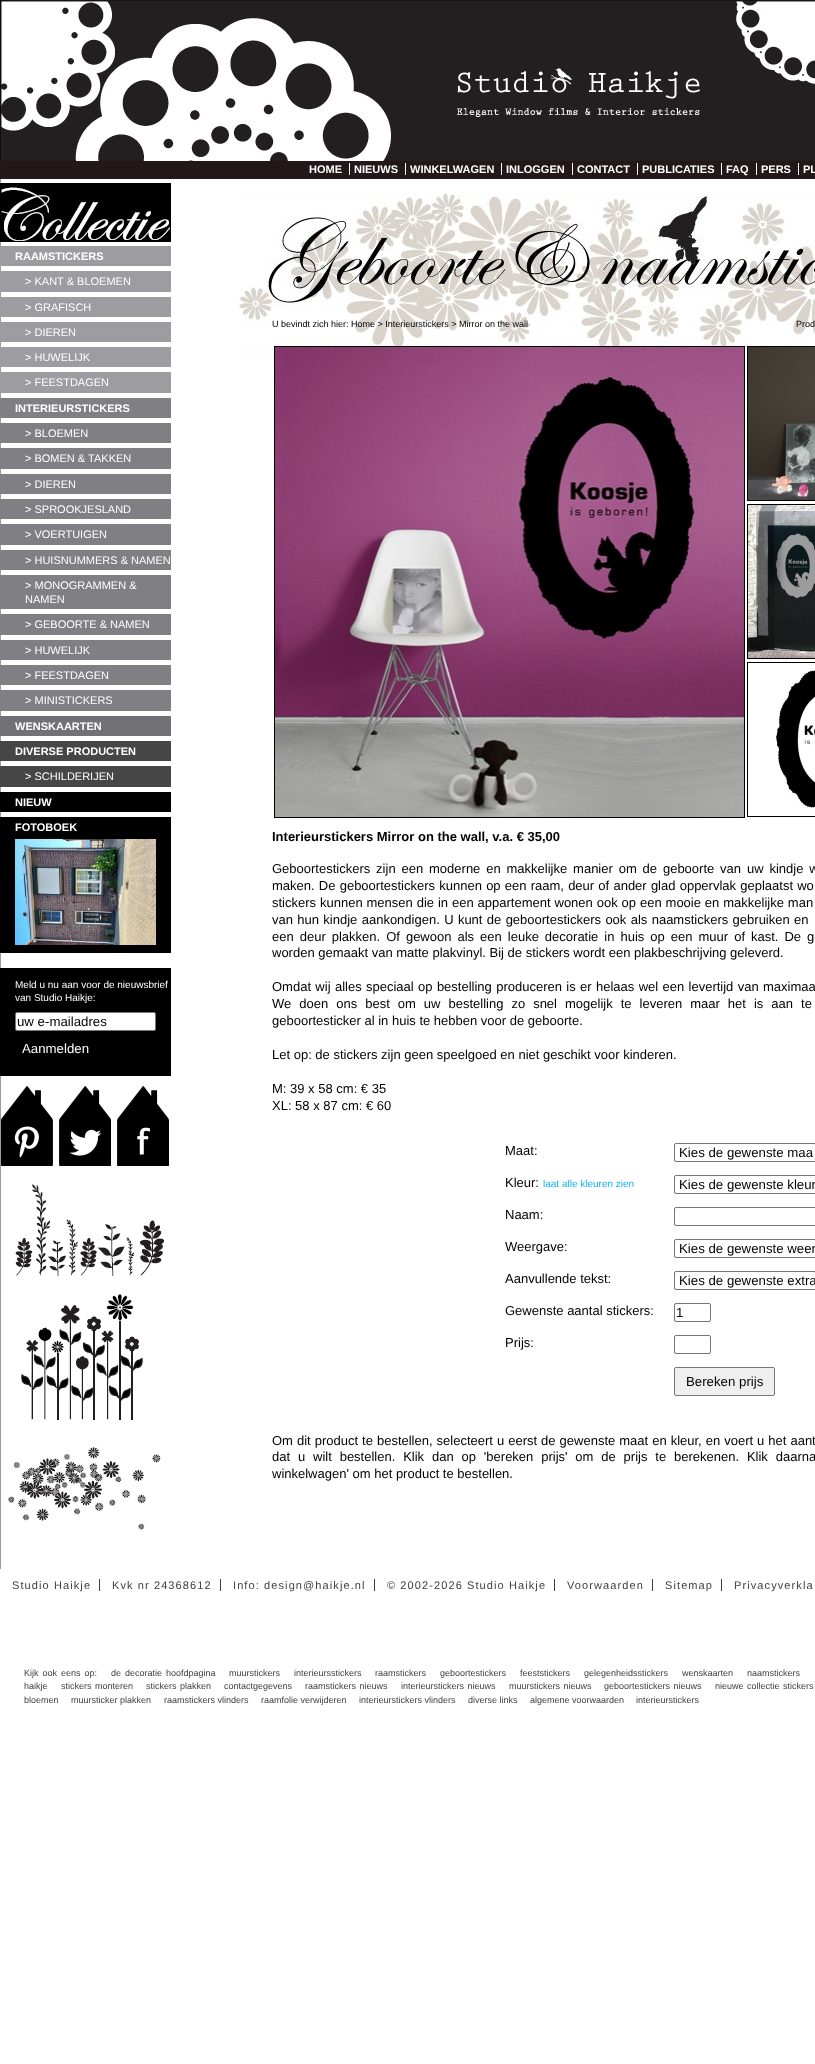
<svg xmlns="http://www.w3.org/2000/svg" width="815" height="2064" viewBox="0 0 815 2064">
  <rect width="100%" height="100%" fill="rgb(255,255,255)"/>
  <image x="0" y="0" width="815" height="161" href="pic1.png"/>
  <rect x="0" y="161" width="815" height="18" fill="rgb(34,24,25)"/>
  <text x="309" y="173" font-family="Liberation Sans" font-size="11" font-weight="bold" fill="rgb(255,255,255)">HOME</text>
  <rect x="349" y="163" width="1" height="12" fill="rgb(255,255,255)"/>
  <text x="354" y="173" font-family="Liberation Sans" font-size="11" font-weight="bold" fill="rgb(255,255,255)">NIEUWS</text>
  <rect x="405" y="163" width="1" height="12" fill="rgb(255,255,255)"/>
  <text x="410" y="173" font-family="Liberation Sans" font-size="11" font-weight="bold" fill="rgb(255,255,255)">WINKELWAGEN</text>
  <rect x="501" y="163" width="1" height="12" fill="rgb(255,255,255)"/>
  <text x="506" y="173" font-family="Liberation Sans" font-size="11" font-weight="bold" fill="rgb(255,255,255)">INLOGGEN</text>
  <rect x="572" y="163" width="1" height="12" fill="rgb(255,255,255)"/>
  <text x="577" y="173" font-family="Liberation Sans" font-size="11" font-weight="bold" fill="rgb(255,255,255)">CONTACT</text>
  <rect x="637" y="163" width="1" height="12" fill="rgb(255,255,255)"/>
  <text x="642" y="173" font-family="Liberation Sans" font-size="11" font-weight="bold" fill="rgb(255,255,255)">PUBLICATIES</text>
  <rect x="721" y="163" width="1" height="12" fill="rgb(255,255,255)"/>
  <text x="726" y="173" font-family="Liberation Sans" font-size="11" font-weight="bold" fill="rgb(255,255,255)">FAQ</text>
  <rect x="756" y="163" width="1" height="12" fill="rgb(255,255,255)"/>
  <text x="761" y="173" font-family="Liberation Sans" font-size="11" font-weight="bold" fill="rgb(255,255,255)">PERS</text>
  <rect x="798" y="163" width="1" height="12" fill="rgb(255,255,255)"/>
  <text x="803" y="173" font-family="Liberation Sans" font-size="11" font-weight="bold" fill="rgb(255,255,255)">PL</text>
  <rect x="0" y="179" width="1" height="1390" fill="rgb(156,156,156)"/>
  <image x="0" y="183" width="171" height="59" href="pic2.png"/>
  <rect x="0" y="246" width="171" height="20" fill="rgb(157,156,161)"/>
  <text x="15" y="260" font-family="Liberation Sans" font-size="11" font-weight="bold" fill="rgb(255,255,255)">RAAMSTICKERS</text>
  <rect x="0" y="271" width="171" height="21" fill="rgb(157,156,161)"/>
  <text x="25" y="285" font-family="Liberation Sans" font-size="11" fill="rgb(255,255,255)">&gt; KANT &amp; BLOEMEN</text>
  <rect x="0" y="297" width="171" height="20" fill="rgb(157,156,161)"/>
  <text x="25" y="311" font-family="Liberation Sans" font-size="11" fill="rgb(255,255,255)">&gt; GRAFISCH</text>
  <rect x="0" y="322" width="171" height="20" fill="rgb(157,156,161)"/>
  <text x="25" y="336" font-family="Liberation Sans" font-size="11" fill="rgb(255,255,255)">&gt; DIEREN</text>
  <rect x="0" y="347" width="171" height="20" fill="rgb(157,156,161)"/>
  <text x="25" y="361" font-family="Liberation Sans" font-size="11" fill="rgb(255,255,255)">&gt; HUWELIJK</text>
  <rect x="0" y="372" width="171" height="21" fill="rgb(157,156,161)"/>
  <text x="25" y="386" font-family="Liberation Sans" font-size="11" fill="rgb(255,255,255)">&gt; FEESTDAGEN</text>
  <rect x="0" y="398" width="171" height="20" fill="rgb(128,127,132)"/>
  <text x="15" y="412" font-family="Liberation Sans" font-size="11" font-weight="bold" fill="rgb(255,255,255)">INTERIEURSTICKERS</text>
  <rect x="0" y="423" width="171" height="20" fill="rgb(128,127,132)"/>
  <text x="25" y="437" font-family="Liberation Sans" font-size="11" fill="rgb(255,255,255)">&gt; BLOEMEN</text>
  <rect x="0" y="448" width="171" height="21" fill="rgb(128,127,132)"/>
  <text x="25" y="462" font-family="Liberation Sans" font-size="11" fill="rgb(255,255,255)">&gt; BOMEN &amp; TAKKEN</text>
  <rect x="0" y="474" width="171" height="20" fill="rgb(128,127,132)"/>
  <text x="25" y="488" font-family="Liberation Sans" font-size="11" fill="rgb(255,255,255)">&gt; DIEREN</text>
  <rect x="0" y="499" width="171" height="20" fill="rgb(128,127,132)"/>
  <text x="25" y="513" font-family="Liberation Sans" font-size="11" fill="rgb(255,255,255)">&gt; SPROOKJESLAND</text>
  <rect x="0" y="524" width="171" height="21" fill="rgb(128,127,132)"/>
  <text x="25" y="538" font-family="Liberation Sans" font-size="11" fill="rgb(255,255,255)">&gt; VOERTUIGEN</text>
  <rect x="0" y="550" width="171" height="20" fill="rgb(128,127,132)"/>
  <text x="25" y="564" font-family="Liberation Sans" font-size="11" fill="rgb(255,255,255)">&gt; HUISNUMMERS &amp; NAMEN</text>
  <rect x="0" y="575" width="171" height="34" fill="rgb(128,127,132)"/>
  <g font-family="Liberation Sans" font-size="11" fill="rgb(255,255,255)">
    <text>
      <tspan x="25" y="589">&gt; MONOGRAMMEN &amp;</tspan>
      <tspan x="25" y="603">NAMEN</tspan>
    </text>
  </g>
  <rect x="0" y="614" width="171" height="21" fill="rgb(128,127,132)"/>
  <text x="25" y="628" font-family="Liberation Sans" font-size="11" fill="rgb(255,255,255)">&gt; GEBOORTE &amp; NAMEN</text>
  <rect x="0" y="640" width="171" height="20" fill="rgb(128,127,132)"/>
  <text x="25" y="654" font-family="Liberation Sans" font-size="11" fill="rgb(255,255,255)">&gt; HUWELIJK</text>
  <rect x="0" y="665" width="171" height="20" fill="rgb(128,127,132)"/>
  <text x="25" y="679" font-family="Liberation Sans" font-size="11" fill="rgb(255,255,255)">&gt; FEESTDAGEN</text>
  <rect x="0" y="690" width="171" height="21" fill="rgb(128,127,132)"/>
  <text x="25" y="704" font-family="Liberation Sans" font-size="11" fill="rgb(255,255,255)">&gt; MINISTICKERS</text>
  <rect x="0" y="716" width="171" height="20" fill="rgb(114,113,118)"/>
  <text x="15" y="730" font-family="Liberation Sans" font-size="11" font-weight="bold" fill="rgb(255,255,255)">WENSKAARTEN</text>
  <rect x="0" y="741" width="171" height="20" fill="rgb(70,70,70)"/>
  <text x="15" y="755" font-family="Liberation Sans" font-size="11" font-weight="bold" fill="rgb(255,255,255)">DIVERSE PRODUCTEN</text>
  <rect x="0" y="766" width="171" height="21" fill="rgb(70,70,70)"/>
  <text x="25" y="780" font-family="Liberation Sans" font-size="11" fill="rgb(255,255,255)">&gt; SCHILDERIJEN</text>
  <rect x="0" y="792" width="171" height="20" fill="rgb(0,0,0)"/>
  <text x="15" y="806" font-family="Liberation Sans" font-size="11" font-weight="bold" fill="rgb(255,255,255)">NIEUW</text>
  <rect x="0" y="817" width="171" height="136" fill="rgb(0,0,0)"/>
  <text x="15" y="831" font-family="Liberation Sans" font-size="11" font-weight="bold" fill="rgb(255,255,255)">FOTOBOEK</text>
  <image x="15" y="839" width="141" height="106" href="pic3.png"/>
  <rect x="0" y="968" width="171" height="108" fill="rgb(0,0,0)"/>
  <g font-family="Liberation Sans" font-size="10" fill="rgb(255,255,255)">
    <text>
      <tspan x="15" y="988">Meld u nu aan voor de nieuwsbrief</tspan>
      <tspan x="15" y="1001">van Studio Haikje:</tspan>
    </text>
  </g>
  <rect x="15.5" y="1012.5" width="140" height="18" rx="1.5" fill="rgb(255,255,255)" stroke="rgb(118,118,118)"/>
  <text x="17" y="1026" font-family="Liberation Sans" font-size="13.25" fill="rgb(0,0,0)">uw e-mailadres</text>
  <text x="22" y="1053" font-family="Liberation Sans" font-size="13.25" fill="rgb(255,255,255)">Aanmelden</text>
  <image x="1" y="1086" width="52" height="80" href="pic4.png"/>
  <image x="59" y="1086" width="52" height="80" href="pic5.png"/>
  <image x="117" y="1086" width="52" height="80" href="pic6.png"/>
  <image x="15" y="1184" width="149" height="92" href="pic7.png"/>
  <image x="21" y="1294" width="122" height="126" href="pic8.png"/>
  <image x="8" y="1447" width="153" height="83" href="pic9.png"/>
  <image x="239" y="194" width="576" height="160" href="pic10.png"/>
  <g font-family="Liberation Sans" font-size="9" fill="rgb(0,0,0)">
    <text x="272" y="327">U bevindt zich hier: Home &gt; Interieurstickers &gt; Mirror on the wall</text>
    <text x="796" y="327">Prod</text>
  </g>
  <rect x="274.5" y="346.5" width="470" height="471" fill="none" stroke="rgb(0,0,0)"/>
  <image x="275" y="347" width="469" height="470" href="pic11.png"/>
  <rect x="747.5" y="346.5" width="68" height="154" fill="none" stroke="rgb(0,0,0)"/>
  <image x="748" y="347" width="67" height="153" href="pic12.png"/>
  <rect x="747.5" y="504.5" width="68" height="154" fill="none" stroke="rgb(0,0,0)"/>
  <image x="748" y="505" width="67" height="153" href="pic13.png"/>
  <rect x="747.5" y="662.5" width="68" height="154" fill="none" stroke="rgb(0,0,0)"/>
  <image x="776" y="670" width="39" height="138" href="pic14.png"/>
  <text x="272" y="841" font-family="Liberation Sans" font-size="13" font-weight="bold" fill="rgb(0,0,0)">Interieurstickers Mirror on the wall, v.a. € 35,00</text>
  <g font-family="Liberation Sans" font-size="13" fill="rgb(0,0,0)">
    <text>
      <tspan x="272" y="873" word-spacing="2.25">Geboortestickers zijn een moderne en makkelijke manier om de geboorte van uw kindje w</tspan>
      <tspan x="272" y="890" word-spacing="0.6">maken. De geboortestickers kunnen op een raam, deur of ander glad oppervlak geplaatst wo</tspan>
      <tspan x="272" y="907" word-spacing="0.3">stickers kunnen mensen die in een appartement wonen ook op een mooie en makkelijke man</tspan>
      <tspan x="272" y="924" word-spacing="0.75">van hun kindje aankondigen. U kunt de geboortestickers ook als naamstickers gebruiken en</tspan>
      <tspan x="272" y="941" word-spacing="2.4">een deur plakken. Of gewoon als een leuke decoratie in huis op een muur of kast. De g</tspan>
      <tspan x="272" y="957">worden gemaakt van matte plakvinyl. Bij de stickers wordt een plakbeschrijving geleverd.</tspan>
    </text>
    <text>
      <tspan x="272" y="991" word-spacing="0.75">Omdat wij alles speciaal op bestelling produceren is er helaas wel een levertijd van maximaa</tspan>
      <tspan x="272" y="1008" word-spacing="4.4">We doen ons best om uw bestelling zo snel mogelijk te leveren maar het is aan te</tspan>
      <tspan x="272" y="1025">geboortesticker al in huis te hebben voor de geboorte.</tspan>
    </text>
    <text x="272" y="1059">Let op: de stickers zijn geen speelgoed en niet geschikt voor kinderen.</text>
    <text>
      <tspan x="272" y="1093">M: 39 x 58 cm: € 35</tspan>
      <tspan x="272" y="1110">XL: 58 x 87 cm: € 60</tspan>
    </text>
    <text x="505" y="1155">Maat:</text>
  </g>
  <rect x="674.5" y="1143.5" width="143" height="18" rx="1.5" fill="none" stroke="rgb(118,118,118)"/>
  <text x="679" y="1157" font-family="Liberation Sans" font-size="13.25" fill="rgb(0,0,0)">Kies de gewenste maa</text>
  <text x="505" y="1187" font-family="Liberation Sans" font-size="13" fill="rgb(0,0,0)">Kleur:</text>
  <text x="543" y="1187" font-family="Liberation Sans" font-size="10" fill="rgb(19,178,247)">laat alle kleuren zien</text>
  <rect x="674.5" y="1175.5" width="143" height="18" rx="1.5" fill="none" stroke="rgb(118,118,118)"/>
  <text x="679" y="1189" font-family="Liberation Sans" font-size="13.25" fill="rgb(0,0,0)">Kies de gewenste kleur</text>
  <text x="505" y="1219" font-family="Liberation Sans" font-size="13" fill="rgb(0,0,0)">Naam:</text>
  <rect x="674.5" y="1207.5" width="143" height="18" rx="1.5" fill="none" stroke="rgb(118,118,118)"/>
  <text x="505" y="1251" font-family="Liberation Sans" font-size="13" fill="rgb(0,0,0)">Weergave:</text>
  <rect x="674.5" y="1239.5" width="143" height="18" rx="1.5" fill="none" stroke="rgb(118,118,118)"/>
  <text x="679" y="1253" font-family="Liberation Sans" font-size="13.25" fill="rgb(0,0,0)">Kies de gewenste weer</text>
  <text x="505" y="1283" font-family="Liberation Sans" font-size="13" fill="rgb(0,0,0)">Aanvullende tekst:</text>
  <rect x="674.5" y="1271.5" width="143" height="18" rx="1.5" fill="none" stroke="rgb(118,118,118)"/>
  <text x="679" y="1285" font-family="Liberation Sans" font-size="13.25" fill="rgb(0,0,0)">Kies de gewenste extra</text>
  <text x="505" y="1315" font-family="Liberation Sans" font-size="13" fill="rgb(0,0,0)">Gewenste aantal stickers:</text>
  <rect x="674.5" y="1303.5" width="36" height="18" rx="1.5" fill="none" stroke="rgb(118,118,118)"/>
  <text x="676" y="1317" font-family="Liberation Sans" font-size="13.25" fill="rgb(0,0,0)">1</text>
  <text x="505" y="1347" font-family="Liberation Sans" font-size="13" fill="rgb(0,0,0)">Prijs:</text>
  <rect x="674.5" y="1335.5" width="36" height="18" rx="1.5" fill="none" stroke="rgb(118,118,118)"/>
  <rect x="674.5" y="1367.5" width="100" height="28" rx="1.5" fill="rgb(239,239,239)" stroke="rgb(118,118,118)"/>
  <text x="686" y="1386" font-family="Liberation Sans" font-size="13.25" fill="rgb(0,0,0)">Bereken prijs</text>
  <g font-family="Liberation Sans" font-size="13" fill="rgb(0,0,0)">
    <text>
      <tspan x="272" y="1445" word-spacing="0.4">Om dit product te bestellen, selecteert u eerst de gewenste maat en kleur, en voert u het aant</tspan>
      <tspan x="272" y="1461" word-spacing="4.25">dat u wilt bestellen. Klik dan op 'bereken prijs' om de prijs te berekenen. Klik daarna</tspan>
      <tspan x="272" y="1478">winkelwagen' om het product te bestellen.</tspan>
    </text>
  </g>
  <text x="12" y="1589" font-family="Liberation Sans" font-size="11" letter-spacing="1.1" fill="rgb(64,64,64)">Studio Haikje</text>
  <rect x="99" y="1579" width="1" height="12" fill="rgb(64,64,64)"/>
  <text x="112" y="1589" font-family="Liberation Sans" font-size="11" letter-spacing="1.1" fill="rgb(64,64,64)">Kvk nr 24368612</text>
  <rect x="220" y="1579" width="1" height="12" fill="rgb(64,64,64)"/>
  <text x="233" y="1589" font-family="Liberation Sans" font-size="11" letter-spacing="1.1" fill="rgb(64,64,64)">Info: design@haikje.nl</text>
  <rect x="374" y="1579" width="1" height="12" fill="rgb(64,64,64)"/>
  <text x="387" y="1589" font-family="Liberation Sans" font-size="11" letter-spacing="1.1" fill="rgb(64,64,64)">© 2002-2026 Studio Haikje</text>
  <rect x="554" y="1579" width="1" height="12" fill="rgb(64,64,64)"/>
  <text x="567" y="1589" font-family="Liberation Sans" font-size="11" letter-spacing="1.1" fill="rgb(64,64,64)">Voorwaarden</text>
  <rect x="652" y="1579" width="1" height="12" fill="rgb(64,64,64)"/>
  <text x="665" y="1589" font-family="Liberation Sans" font-size="11" letter-spacing="1.1" fill="rgb(64,64,64)">Sitemap</text>
  <rect x="721" y="1579" width="1" height="12" fill="rgb(64,64,64)"/>
  <text x="734" y="1589" font-family="Liberation Sans" font-size="11" letter-spacing="1.1" fill="rgb(64,64,64)">Privacyverkla</text>
  <g font-family="Liberation Sans" font-size="9" fill="rgb(64,64,64)">
    <text x="24" y="1676" word-spacing="1.5">Kijk ook eens op:</text>
    <text x="111" y="1676" word-spacing="1.5">de decoratie hoofdpagina</text>
    <text x="229" y="1676">muurstickers</text>
    <text x="294" y="1676">interieursstickers</text>
    <text x="375" y="1676">raamstickers</text>
    <text x="440" y="1676">geboortestickers</text>
    <text x="520" y="1676">feeststickers</text>
    <text x="584" y="1676">gelegenheidsstickers</text>
    <text x="682" y="1676">wenskaarten</text>
    <text x="747" y="1676">naamstickers</text>
    <text x="24" y="1689">haikje</text>
    <text x="61" y="1689" word-spacing="1">stickers monteren</text>
    <text x="146" y="1689" word-spacing="1">stickers plakken</text>
    <text x="224" y="1689">contactgegevens</text>
    <text x="305" y="1689" word-spacing="1">raamstickers nieuws</text>
    <text x="401" y="1689" word-spacing="1">interieurstickers nieuws</text>
    <text x="509" y="1689" word-spacing="1">muurstickers nieuws</text>
    <text x="604" y="1689" word-spacing="1">geboortestickers nieuws</text>
    <text x="715" y="1689" word-spacing="1">nieuwe collectie stickers</text>
    <text x="24" y="1703">bloemen</text>
    <text x="71" y="1703">muursticker plakken</text>
    <text x="164" y="1703">raamstickers vlinders</text>
    <text x="261" y="1703">raamfolie verwijderen</text>
    <text x="359" y="1703">interieurstickers vlinders</text>
    <text x="468" y="1703">diverse links</text>
    <text x="530" y="1703">algemene voorwaarden</text>
    <text x="636" y="1703">interieurstickers</text>
  </g>
</svg>
